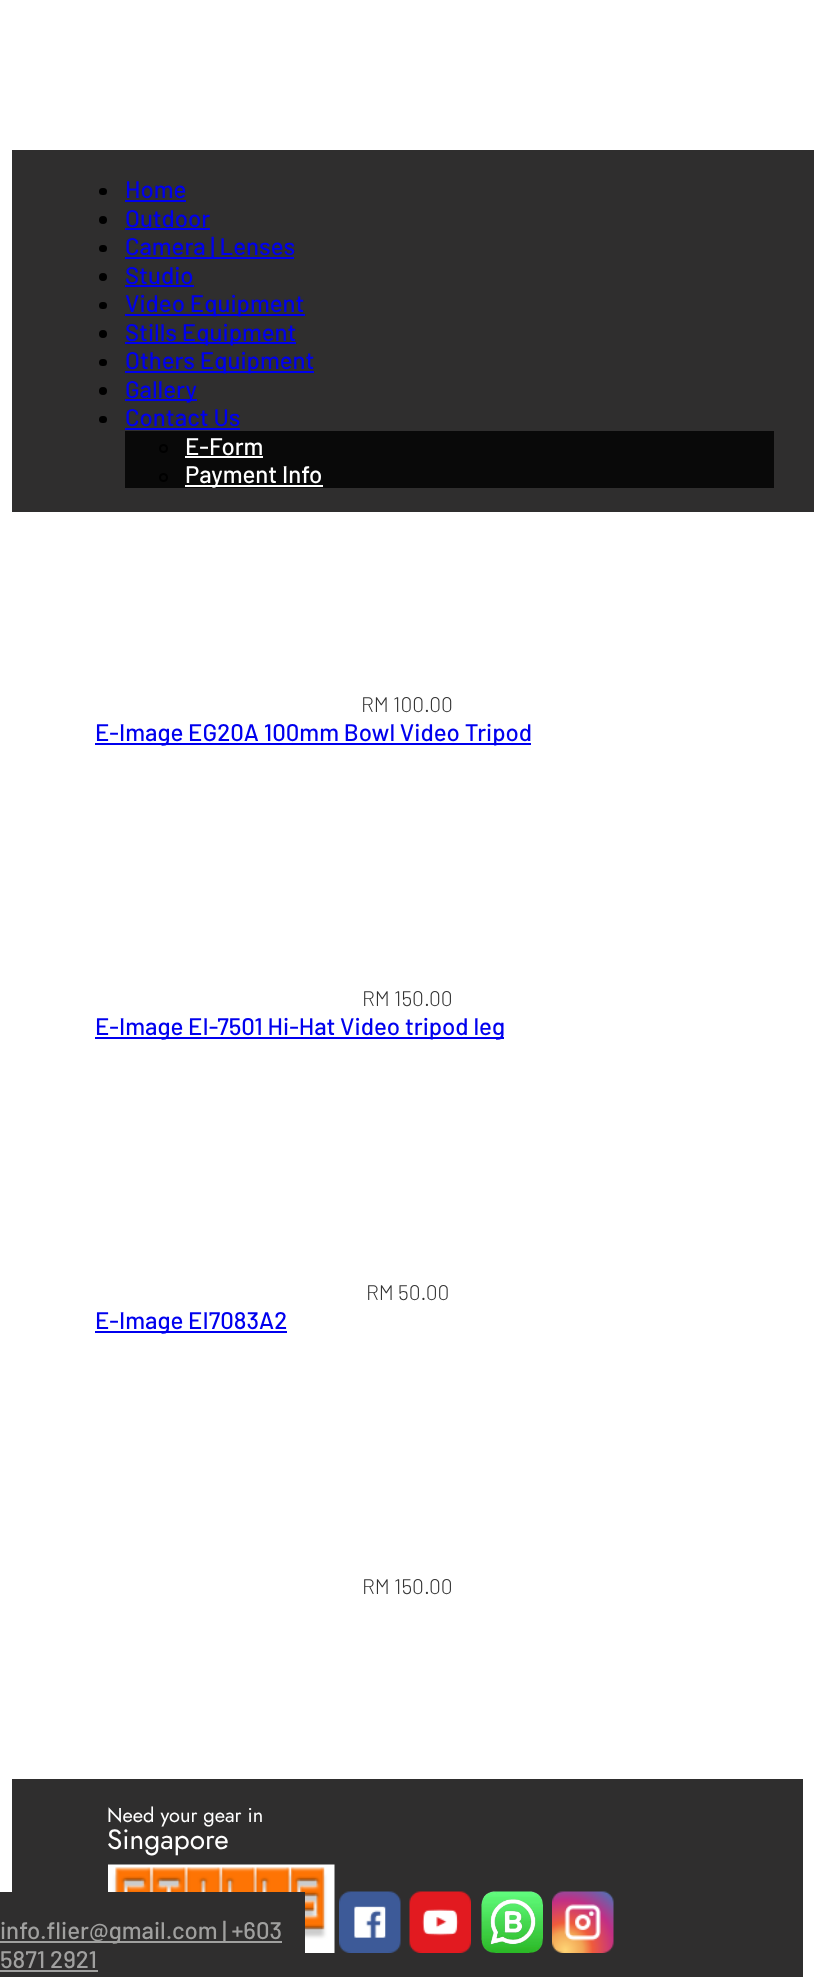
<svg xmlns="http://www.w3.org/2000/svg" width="814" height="1977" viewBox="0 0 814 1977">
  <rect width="100%" height="100%" fill="rgb(255,255,255)"/>
  <rect x="12" y="150" width="802" height="362" fill="rgb(47,46,46)"/>
  <rect x="99" y="188" width="8" height="7" rx="3.5" fill="rgb(0,0,0)"/>
  <text x="125" y="198" font-family="Barlow" font-size="24" font-weight="500" fill="rgb(0,0,238)">Home</text>
  <rect x="125" y="200" width="61" height="2" fill="rgb(0,0,238)"/>
  <circle cx="103" cy="220" r="4" fill="rgb(0,0,0)"/>
  <text x="125" y="227" font-family="Barlow" font-size="24" font-weight="500" fill="rgb(0,0,238)">Outdoor</text>
  <rect x="125" y="228" width="85" height="2" fill="rgb(0,0,238)"/>
  <rect x="99" y="245" width="8" height="7" rx="3.5" fill="rgb(0,0,0)"/>
  <text x="125" y="255" font-family="Barlow" font-size="24" font-weight="500" fill="rgb(0,0,238)">Camera | Lenses</text>
  <rect x="125" y="257" width="169" height="2" fill="rgb(0,0,238)"/>
  <circle cx="103" cy="277" r="4" fill="rgb(0,0,0)"/>
  <text x="125" y="284" font-family="Barlow" font-size="24" font-weight="500" fill="rgb(0,0,238)">Studio</text>
  <rect x="125" y="285" width="69" height="2" fill="rgb(0,0,238)"/>
  <rect x="99" y="302" width="8" height="7" rx="3.5" fill="rgb(0,0,0)"/>
  <rect x="125" y="314" width="180" height="2" fill="rgb(0,0,238)"/>
  <text x="125" y="312" font-family="Barlow" font-size="24" font-weight="500" fill="rgb(0,0,238)">Video Equipment</text>
  <circle cx="103" cy="334" r="4" fill="rgb(0,0,0)"/>
  <rect x="125" y="342" width="171" height="2" fill="rgb(0,0,238)"/>
  <text x="125" y="341" font-family="Barlow" font-size="24" font-weight="500" fill="rgb(0,0,238)">Stills Equipment</text>
  <rect x="99" y="359" width="8" height="7" rx="3.5" fill="rgb(0,0,0)"/>
  <rect x="125" y="371" width="189" height="2" fill="rgb(0,0,238)"/>
  <text x="125" y="369" font-family="Barlow" font-size="24" font-weight="500" fill="rgb(0,0,238)">Others Equipment</text>
  <circle cx="103" cy="391" r="4" fill="rgb(0,0,0)"/>
  <rect x="125" y="399" width="72" height="2" fill="rgb(0,0,238)"/>
  <text x="125" y="398" font-family="Barlow" font-size="24" font-weight="500" fill="rgb(0,0,238)">Gallery</text>
  <rect x="99" y="416" width="8" height="7" rx="3.5" fill="rgb(0,0,0)"/>
  <text x="125" y="426" font-family="Barlow" font-size="24" font-weight="500" fill="rgb(0,0,238)">Contact Us</text>
  <rect x="125" y="428" width="115" height="2" fill="rgb(0,0,238)"/>
  <rect x="125" y="431" width="649" height="57" fill="rgb(9,9,9)"/>
  <circle cx="163.5" cy="448.5" r="3.5" fill="none" stroke="rgb(0,0,0)" stroke-width="2"/>
  <text x="185" y="455" font-family="Barlow" font-size="24" font-weight="500" fill="rgb(255,255,255)">E-Form</text>
  <rect x="185" y="456" width="78" height="2" fill="rgb(255,255,255)"/>
  <circle cx="163.5" cy="477.5" r="3.5" fill="none" stroke="rgb(0,0,0)" stroke-width="2"/>
  <rect x="185" y="485" width="138" height="2" fill="rgb(255,255,255)"/>
  <text x="185" y="483" font-family="Barlow" font-size="24" font-weight="500" fill="rgb(255,255,255)">Payment Info</text>
  <text x="361" y="712" font-family="Barlow" font-size="21" font-weight="300" fill="rgb(51,51,51)">RM 100.00</text>
  <rect x="95" y="743" width="436" height="2" fill="rgb(0,0,238)"/>
  <text x="95" y="741" font-family="Barlow" font-size="24" font-weight="500" fill="rgb(0,0,238)">E-Image EG20A 100mm Bowl Video Tripod</text>
  <text x="362" y="1006" font-family="Barlow" font-size="21" font-weight="300" fill="rgb(51,51,51)">RM 150.00</text>
  <rect x="95" y="1037" width="409" height="2" fill="rgb(0,0,238)"/>
  <text x="95" y="1035" font-family="Barlow" font-size="24" font-weight="500" fill="rgb(0,0,238)">E-Image EI-7501 Hi-Hat Video tripod leg</text>
  <text x="366" y="1300" font-family="Barlow" font-size="21" font-weight="300" fill="rgb(51,51,51)">RM 50.00</text>
  <rect x="95" y="1331" width="192" height="2" fill="rgb(0,0,238)"/>
  <text x="95" y="1329" font-family="Barlow" font-size="24" font-weight="500" fill="rgb(0,0,238)">E-Image EI7083A2</text>
  <text x="362" y="1594" font-family="Barlow" font-size="21" font-weight="300" fill="rgb(51,51,51)">RM 150.00</text>
  <rect x="12" y="1779" width="791" height="198" fill="rgb(47,46,46)"/>
  <text x="107" y="1822" font-family="Jost" font-size="20" fill="rgb(255,255,255)">Need your gear in</text>
  <text x="107" y="1849" font-family="Jost" font-size="28" fill="rgb(255,255,255)">Singapore</text>
  <image x="108" y="1864" width="227" height="89" href="pic1.png"/>
  <image x="339" y="1891" width="62" height="62" href="pic2.png"/>
  <image x="409" y="1891" width="62" height="62" href="pic3.png"/>
  <image x="481" y="1891" width="62" height="62" href="pic4.png"/>
  <image x="552" y="1891" width="62" height="62" href="pic5.png"/>
  <rect x="0" y="1892" width="305" height="85" fill="rgb(47,46,46)"/>
  <rect x="0" y="1941" width="282" height="2" fill="rgb(160,160,159)"/>
  <g font-family="Barlow" font-size="24" font-weight="500" fill="rgb(160,160,159)">
    <text>
      <tspan x="0" y="1939">info.flier@gmail.com | +603</tspan>
      <tspan x="0" y="1968">5871 2921</tspan>
    </text>
  </g>
  <rect x="0" y="1970" width="98" height="2" fill="rgb(160,160,159)"/>
</svg>
